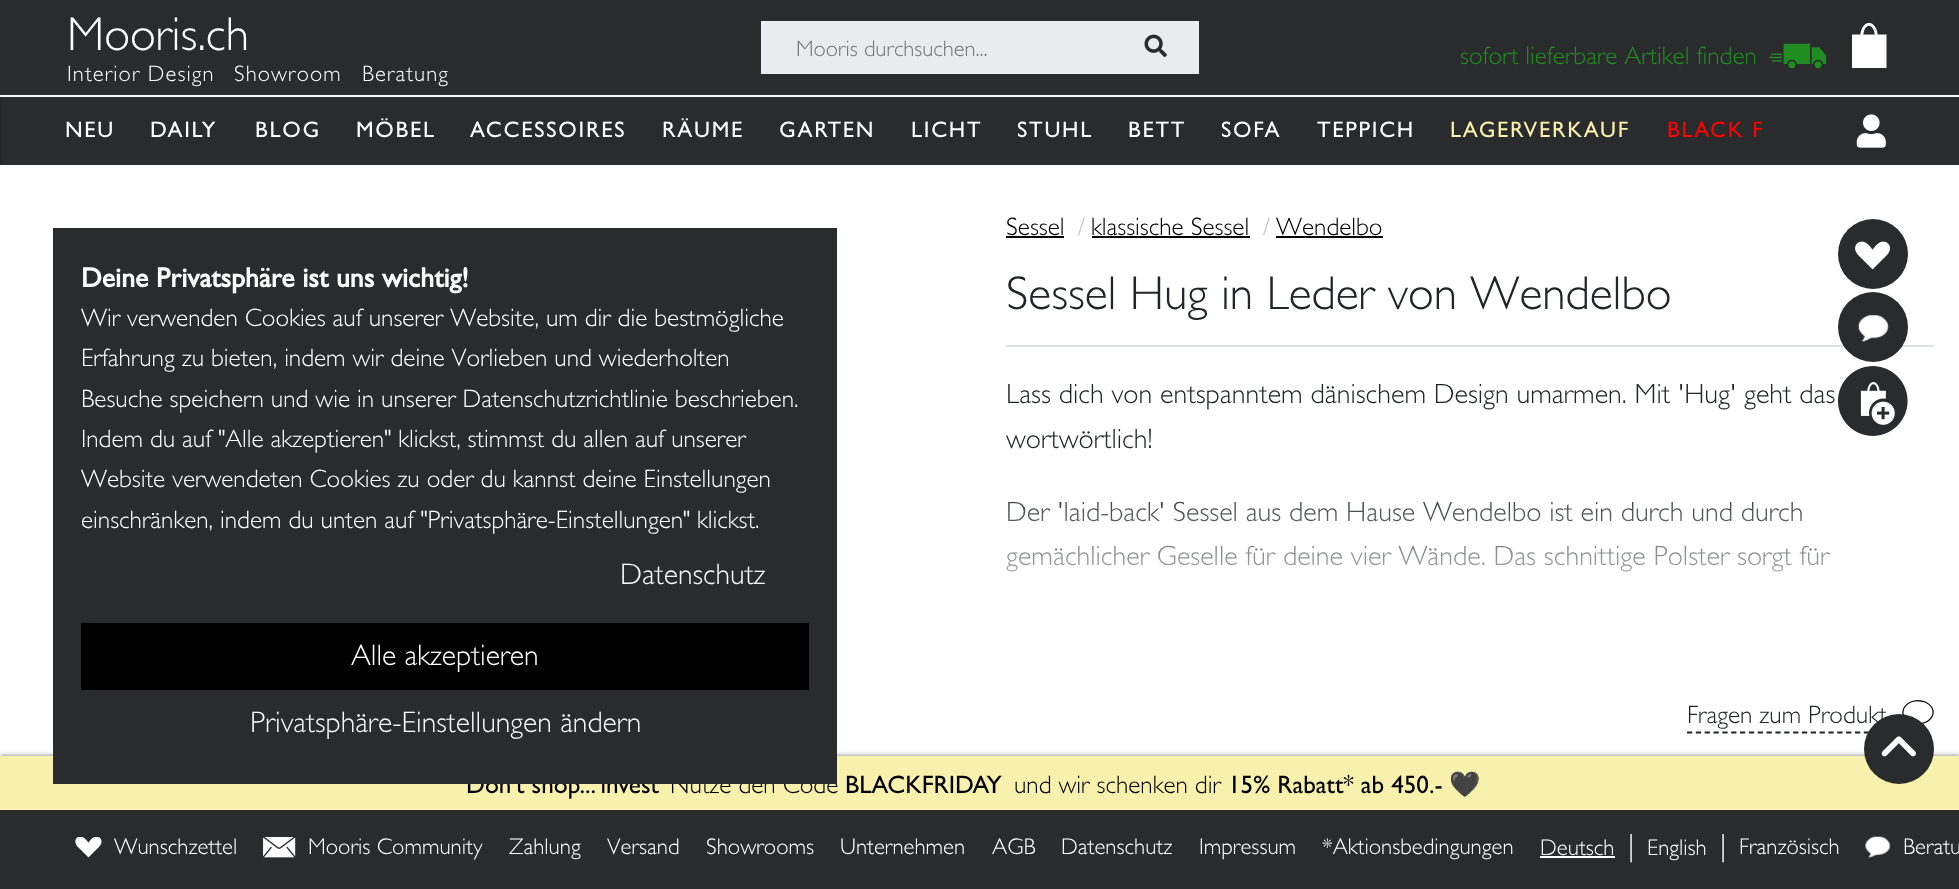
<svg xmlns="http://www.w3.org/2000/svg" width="1959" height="889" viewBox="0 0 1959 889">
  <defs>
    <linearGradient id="g1" gradientUnits="userSpaceOnUse" x1="1470" y1="479" x2="1470" y2="637"><stop offset="0" stop-color="rgb(255,255,255)" stop-opacity="0"/><stop offset="1" stop-color="rgb(255,255,255)"/></linearGradient>
  </defs>
  <rect width="100%" height="100%" fill="rgb(255,255,255)"/>
  <rect x="0" y="0" width="1959" height="95" fill="rgb(41,43,44)"/>
  <rect x="0" y="95" width="2" height="70" fill="rgb(37,39,40)"/>
  <rect x="0" y="95" width="1959" height="2" fill="rgb(248,248,248)"/>
  <text x="67" y="50" font-family="Gill Sans" font-size="47.6" font-weight="300" fill="rgb(255,255,255)">Mooris.ch</text>
  <g font-family="Gill Sans" font-size="22.5" font-weight="300" letter-spacing="1.1" fill="rgb(255,255,255)">
    <text x="67" y="81">Interior Design</text>
    <text x="234" y="81">Showroom</text>
    <text x="362" y="81">Beratung</text>
  </g>
  <rect x="761" y="21" width="438" height="53" fill="rgb(233,235,239)"/>
  <text x="796" y="56" font-family="Gill Sans" font-size="22.5" font-weight="300" fill="rgb(117,117,117)">Mooris durchsuchen...</text>
  <image x="1144" y="34" width="23" height="23" href="pic1.png"/>
  <text x="1460" y="64" font-family="Gill Sans" font-size="25.2" font-weight="300" fill="rgb(32,141,33)">sofort lieferbare Artikel finden</text>
  <image x="1769" y="43" width="58" height="26" href="pic2.png"/>
  <image x="1852" y="23" width="35" height="45" href="pic3.png"/>
  <rect x="2" y="97" width="1957" height="68" fill="rgb(41,43,44)"/>
  <g font-family="Gill Sans" font-size="22.5" letter-spacing="1.75" fill="rgb(255,255,255)">
    <text x="65" y="137">NEU</text>
    <text x="150" y="137">DAILY</text>
    <text x="255" y="137">BLOG</text>
    <text x="356" y="137">MÖBEL</text>
    <text x="470" y="137">ACCESSOIRES</text>
    <text x="662" y="137">RÄUME</text>
    <text x="779" y="137">GARTEN</text>
    <text x="911" y="137">LICHT</text>
    <text x="1017" y="137">STUHL</text>
    <text x="1128" y="137">BETT</text>
    <text x="1221" y="137">SOFA</text>
    <text x="1317" y="137">TEPPICH</text>
  </g>
  <text x="1450" y="137" font-family="Gill Sans" font-size="22.5" letter-spacing="1.75" fill="rgb(248,241,174)">LAGERVERKAUF</text>
  <text x="1667" y="137" font-family="Gill Sans" font-size="22.5" letter-spacing="1.75" fill="rgb(255,0,0)">BLACK F</text>
  <image x="1856" y="114" width="30" height="34" href="pic4.png"/>
  <text x="1006" y="235" font-family="Gill Sans" font-size="25.2" font-weight="300" fill="rgb(0,0,0)">Sessel</text>
  <rect x="1006" y="236" width="58" height="2" fill="rgb(0,0,0)"/>
  <text x="1078" y="235" font-family="Gill Sans" font-size="25.2" font-weight="300" fill="rgb(193,198,191)">/</text>
  <text x="1091" y="235" font-family="Gill Sans" font-size="25.2" font-weight="300" fill="rgb(0,0,0)">klassische Sessel</text>
  <rect x="1092" y="236" width="158" height="2" fill="rgb(0,0,0)"/>
  <text x="1263" y="235" font-family="Gill Sans" font-size="25.2" font-weight="300" fill="rgb(193,198,191)">/</text>
  <text x="1276" y="235" font-family="Gill Sans" font-size="25.2" font-weight="300" fill="rgb(0,0,0)">Wendelbo</text>
  <rect x="1276" y="236" width="107" height="2" fill="rgb(0,0,0)"/>
  <text x="1006" y="309" font-family="Gill Sans" font-size="47.6" font-weight="300" fill="rgb(33,37,41)">Sessel Hug in Leder von Wendelbo</text>
  <rect x="1006" y="345" width="928" height="2" fill="rgb(222,226,230)"/>
  <g font-family="Gill Sans" font-size="28" font-weight="300" fill="rgb(33,37,41)">
    <text>
      <tspan x="1006" y="403">Lass dich von entspanntem dänischem Design umarmen. Mit 'Hug' geht das</tspan>
      <tspan x="1006" y="448">wortwörtlich!</tspan>
    </text>
    <text>
      <tspan x="1006" y="521">Der 'laid-back' Sessel aus dem Hause Wendelbo ist ein durch und durch</tspan>
      <tspan x="1006" y="565">gemächlicher Geselle für deine vier Wände. Das schnittige Polster sorgt für</tspan>
    </text>
  </g>
  <rect x="1006" y="501" width="825" height="71" fill="url(#g1)"/>
  <path d="M1687 732.5H1886.5" fill="none" stroke="rgb(33,37,41)" stroke-width="1.8" stroke-dasharray="5.25 3.59"/>
  <text x="1687" y="723" font-family="Gill Sans" font-size="25.2" font-weight="300" fill="rgb(33,37,41)">Fragen zum Produkt</text>
  <image x="1902" y="700" width="32" height="24" href="pic5.png"/>
  <circle cx="1873" cy="254" r="35" fill="rgb(41,43,44)"/>
  <image x="1855" y="241" width="35" height="29" href="pic6.png"/>
  <circle cx="1873" cy="327" r="35" fill="rgb(41,43,44)"/>
  <image x="1858" y="315" width="31" height="27" href="pic7.png"/>
  <circle cx="1873" cy="401" r="35" fill="rgb(239,239,239)"/>
  <image x="1838" y="366" width="70" height="70" href="pic8.png"/>
  <rect x="0" y="756" width="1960" height="54" fill="rgba(0,0,0,0.55)" filter="blur(2.5px)"/>
  <rect x="0" y="810" width="1959" height="79" fill="rgb(41,43,44)"/>
  <image x="75" y="837" width="27" height="21" href="pic9.png"/>
  <text x="114" y="854" font-family="Gill Sans" font-size="22.75" font-weight="300" fill="rgb(255,255,255)">Wunschzettel</text>
  <image x="263" y="837" width="33" height="21" href="pic10.png"/>
  <g font-family="Gill Sans" font-size="22.75" font-weight="300" fill="rgb(255,255,255)">
    <text x="308" y="854">Mooris Community</text>
    <text x="509" y="854">Zahlung</text>
    <text x="607" y="854">Versand</text>
    <text x="706" y="854">Showrooms</text>
    <text x="840" y="854">Unternehmen</text>
    <text x="992" y="854">AGB</text>
    <text x="1061" y="854">Datenschutz</text>
    <text x="1199" y="854">Impressum</text>
    <text x="1322" y="854">*Aktionsbedingungen</text>
    <text x="1540" y="855">Deutsch</text>
  </g>
  <rect x="1540" y="856" width="75" height="2" fill="rgb(255,255,255)"/>
  <text x="1628" y="855" font-family="Gill Sans" font-size="28" font-weight="300" fill="rgb(255,255,255)">|</text>
  <text x="1647" y="855" font-family="Gill Sans" font-size="22.75" font-weight="300" fill="rgb(255,255,255)">English</text>
  <text x="1720" y="855" font-family="Gill Sans" font-size="28" font-weight="300" fill="rgb(255,255,255)">|</text>
  <text x="1739" y="854" font-family="Gill Sans" font-size="22.75" font-weight="300" fill="rgb(255,255,255)">Französisch</text>
  <image x="1865" y="836" width="26" height="22" href="pic11.png"/>
  <text x="1903" y="854" font-family="Gill Sans" font-size="22.75" font-weight="300" fill="rgb(255,255,255)">Beratu</text>
  <rect x="0" y="756" width="1959" height="54" fill="rgb(248,241,174)"/>
  <circle cx="1899" cy="749" r="35" fill="rgb(41,43,44)"/>
  <image x="1881" y="736" width="35" height="21" href="pic12.png"/>
  <text x="466" y="793" font-family="Gill Sans" font-size="25.2" fill="rgb(0,0,0)">Don't shop... invest</text>
  <text x="670" y="793" font-family="Gill Sans" font-size="25.2" font-weight="300" fill="rgb(0,0,0)">Nutze den Code</text>
  <rect x="53" y="228" width="784" height="556" fill="rgb(41,43,44)"/>
  <text x="81" y="287" font-family="Gill Sans" font-size="27.75" font-weight="bold" fill="rgb(255,255,255)">Deine Privatsphäre ist uns wichtig!</text>
  <g font-family="Gill Sans" font-size="25.2" font-weight="300" fill="rgb(255,255,255)">
    <text>
      <tspan x="81" y="326">Wir verwenden Cookies auf unserer Website, um dir die bestmögliche</tspan>
      <tspan x="81" y="366">Erfahrung zu bieten, indem wir deine Vorlieben und wiederholten</tspan>
      <tspan x="81" y="407">Besuche speichern und wie in unserer Datenschutzrichtlinie beschrieben.</tspan>
      <tspan x="81" y="447">Indem du auf "Alle akzeptieren" klickst, stimmst du allen auf unserer</tspan>
      <tspan x="81" y="487">Website verwendeten Cookies zu oder du kannst deine Einstellungen</tspan>
      <tspan x="81" y="528">einschränken, indem du unten auf "Privatsphäre-Einstellungen" klickst.</tspan>
    </text>
  </g>
  <text x="620" y="584" font-family="Gill Sans" font-size="29.75" font-weight="300" fill="rgb(248,249,250)">Datenschutz</text>
  <rect x="81" y="623" width="728" height="67" fill="rgb(0,0,0)"/>
  <text x="351" y="665" font-family="Gill Sans" font-size="29.75" font-weight="300" fill="rgb(255,255,255)">Alle akzeptieren</text>
  <text x="250" y="732" font-family="Gill Sans" font-size="29.75" font-weight="300" fill="rgb(248,249,250)">Privatsphäre-Einstellungen ändern</text>
  <text x="845" y="793" font-family="Gill Sans" font-size="25.2" fill="rgb(0,0,0)">BLACKFRIDAY</text>
  <text x="1014" y="793" font-family="Gill Sans" font-size="25.2" font-weight="300" fill="rgb(0,0,0)">und wir schenken dir</text>
  <text x="1228" y="793" font-family="Gill Sans" font-size="25.2" fill="rgb(0,0,0)">15% Rabatt* ab 450.-</text>
  <text x="1449" y="793" font-family="Noto Color Emoji" font-size="25.2" fill="rgb(0,0,0)">🖤</text>
</svg>
